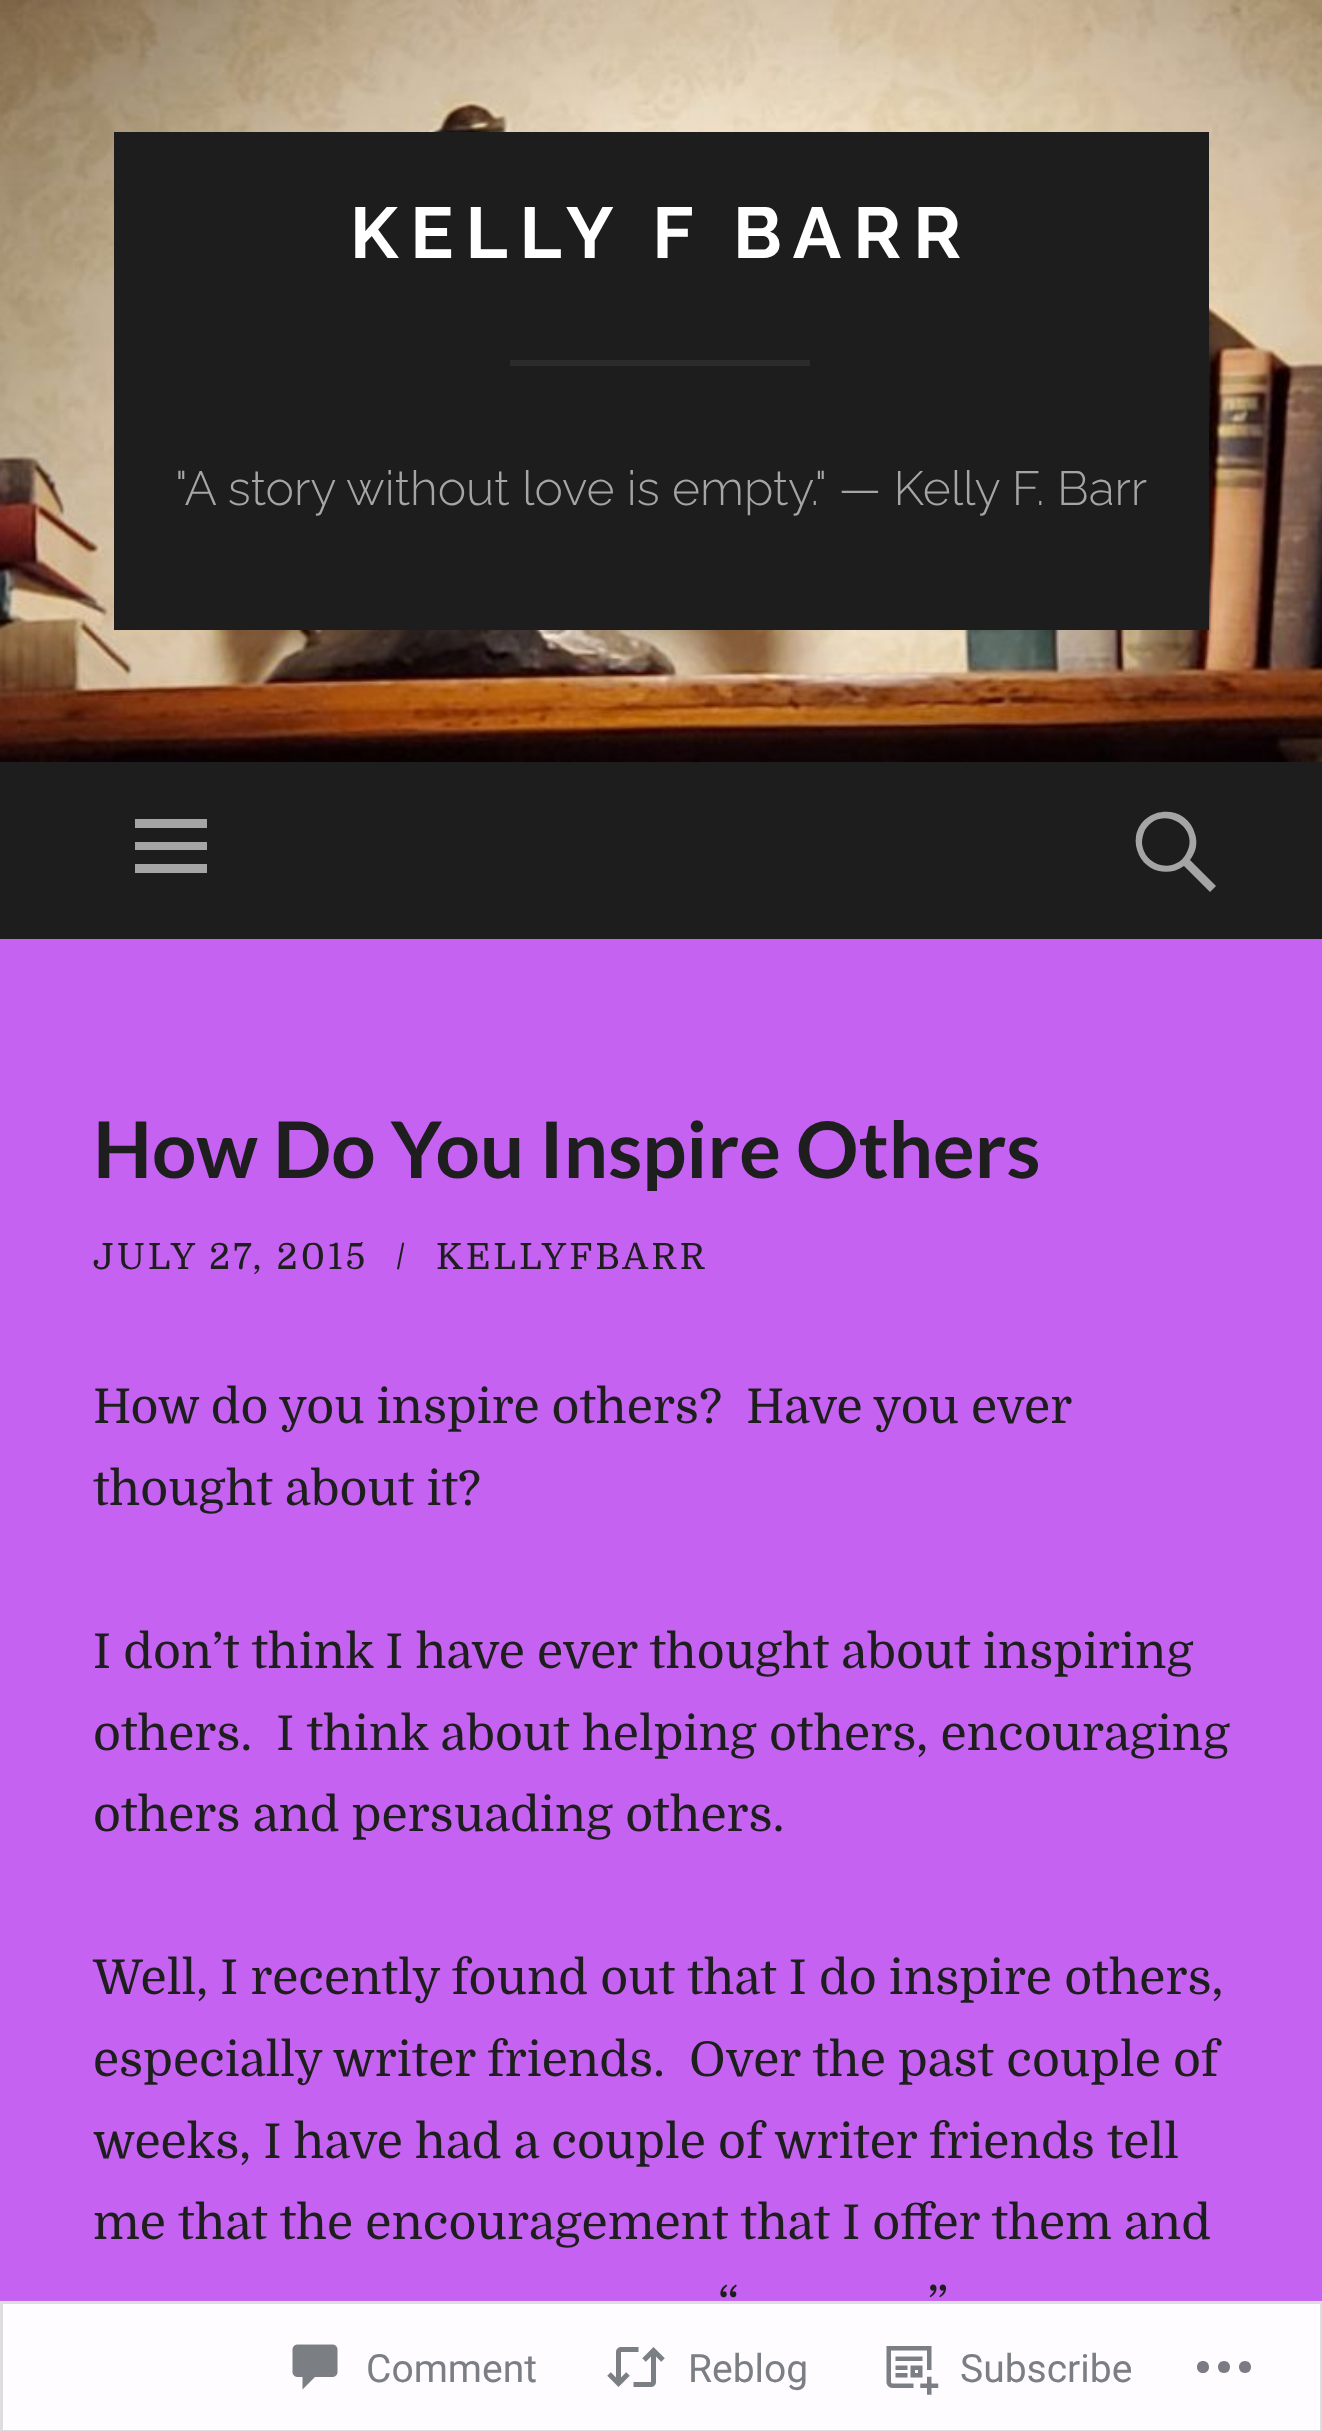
<svg xmlns="http://www.w3.org/2000/svg" width="1322" height="2431" viewBox="0 0 1322 2431">
  <rect width="100%" height="100%" fill="rgb(198,98,242)"/>
  <image x="0" y="0" width="1322" height="762" href="pic1.png"/>
  <rect x="114" y="132" width="1095" height="498" fill="rgb(29,29,29)"/>
  <text x="350" y="258" font-family="Raleway" font-size="72" font-weight="bold" letter-spacing="12" fill="rgb(255,255,255)">KELLY F BARR</text>
  <rect x="510" y="360" width="300" height="6" fill="rgb(43,43,43)"/>
  <text x="175" y="505" font-family="Raleway" font-size="48" font-weight="300" fill="rgb(165,165,165)">"A story without love is empty." — Kelly F. Barr</text>
  <rect x="0" y="762" width="1322" height="177" fill="rgb(29,29,29)"/>
  <path d="M135 873V864H207V873ZM135 819H207V828H135ZM135 850V842H207V850Z" fill="rgb(165,165,165)"/>
  <path d="M1216 886L1210 892L1184 866C1169 877 1147 872 1139 855C1136 849 1135 842 1136 836C1142 805 1187 803 1195 834C1198 843 1196 852 1190 860ZM1145 830C1143 834 1142 839 1142 843C1144 867 1175 874 1186 854C1202 827 1161 803 1145 830Z" fill="rgb(165,165,165)"/>
  <text x="93" y="1178" font-family="Lato" font-size="78" font-weight="bold" fill="rgb(30,30,30)">How Do You Inspire Others</text>
  <g font-family="Domine" font-size="36" letter-spacing="3" fill="rgb(30,30,30)">
    <text x="93" y="1269">JULY 27, 2015</text>
    <text x="395" y="1269">/</text>
    <text x="436" y="1269">KELLYFBARR</text>
  </g>
  <g font-family="Domine" font-size="48" fill="rgb(30,30,30)">
    <text xml:space="preserve"><tspan x="93" y="1423" word-spacing="-0.25">How do you inspire others?  Have you ever</tspan><tspan x="93" y="1505">thought about it?</tspan></text>
    <text xml:space="preserve"><tspan x="93" y="1668">I don’t think I have ever thought about inspiring</tspan><tspan x="93" y="1750">others.  I think about helping others, encouraging</tspan><tspan x="93" y="1831">others and persuading others.</tspan></text>
    <text xml:space="preserve"><tspan x="93" y="1994">Well, I recently found out that I do inspire others,</tspan><tspan x="93" y="2076">especially writer friends.  Over the past couple of</tspan><tspan x="93" y="2158">weeks, I have had a couple of writer friends tell</tspan><tspan x="93" y="2239">me that the encouragement that I offer them and</tspan></text>
    <text x="718" y="2321">“</text>
    <text x="927" y="2321">”</text>
  </g>
  <rect x="0" y="2301" width="1322" height="130" fill="rgba(255,255,255,0.98)"/>
  <rect x="1.5" y="2302.5" width="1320" height="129" fill="none" stroke="rgba(220,220,222,0.98)" stroke-width="3"/>
  <image x="292" y="2344" width="46" height="46" href="pic2.png"/>
  <text x="366" y="2382" font-family="Roboto" font-size="39" fill="rgb(123,127,132)">Comment</text>
  <image x="607" y="2347" width="58" height="40" href="pic3.png"/>
  <text x="688" y="2382" font-family="Roboto" font-size="39" fill="rgb(123,127,132)">Reblog</text>
  <image x="886" y="2346" width="53" height="49" href="pic4.png"/>
  <text x="960" y="2382" font-family="Roboto" font-size="39" fill="rgb(123,127,132)">Subscribe</text>
  <path d="M1209 2367C1209 2375 1197 2375 1197 2367C1197 2359 1209 2359 1209 2367ZM1245 2361C1237 2361 1237 2373 1245 2373C1253 2373 1253 2361 1245 2361ZM1224 2361C1216 2361 1216 2373 1224 2373C1232 2373 1232 2361 1224 2361Z" fill="rgb(122,123,132)"/>
</svg>
